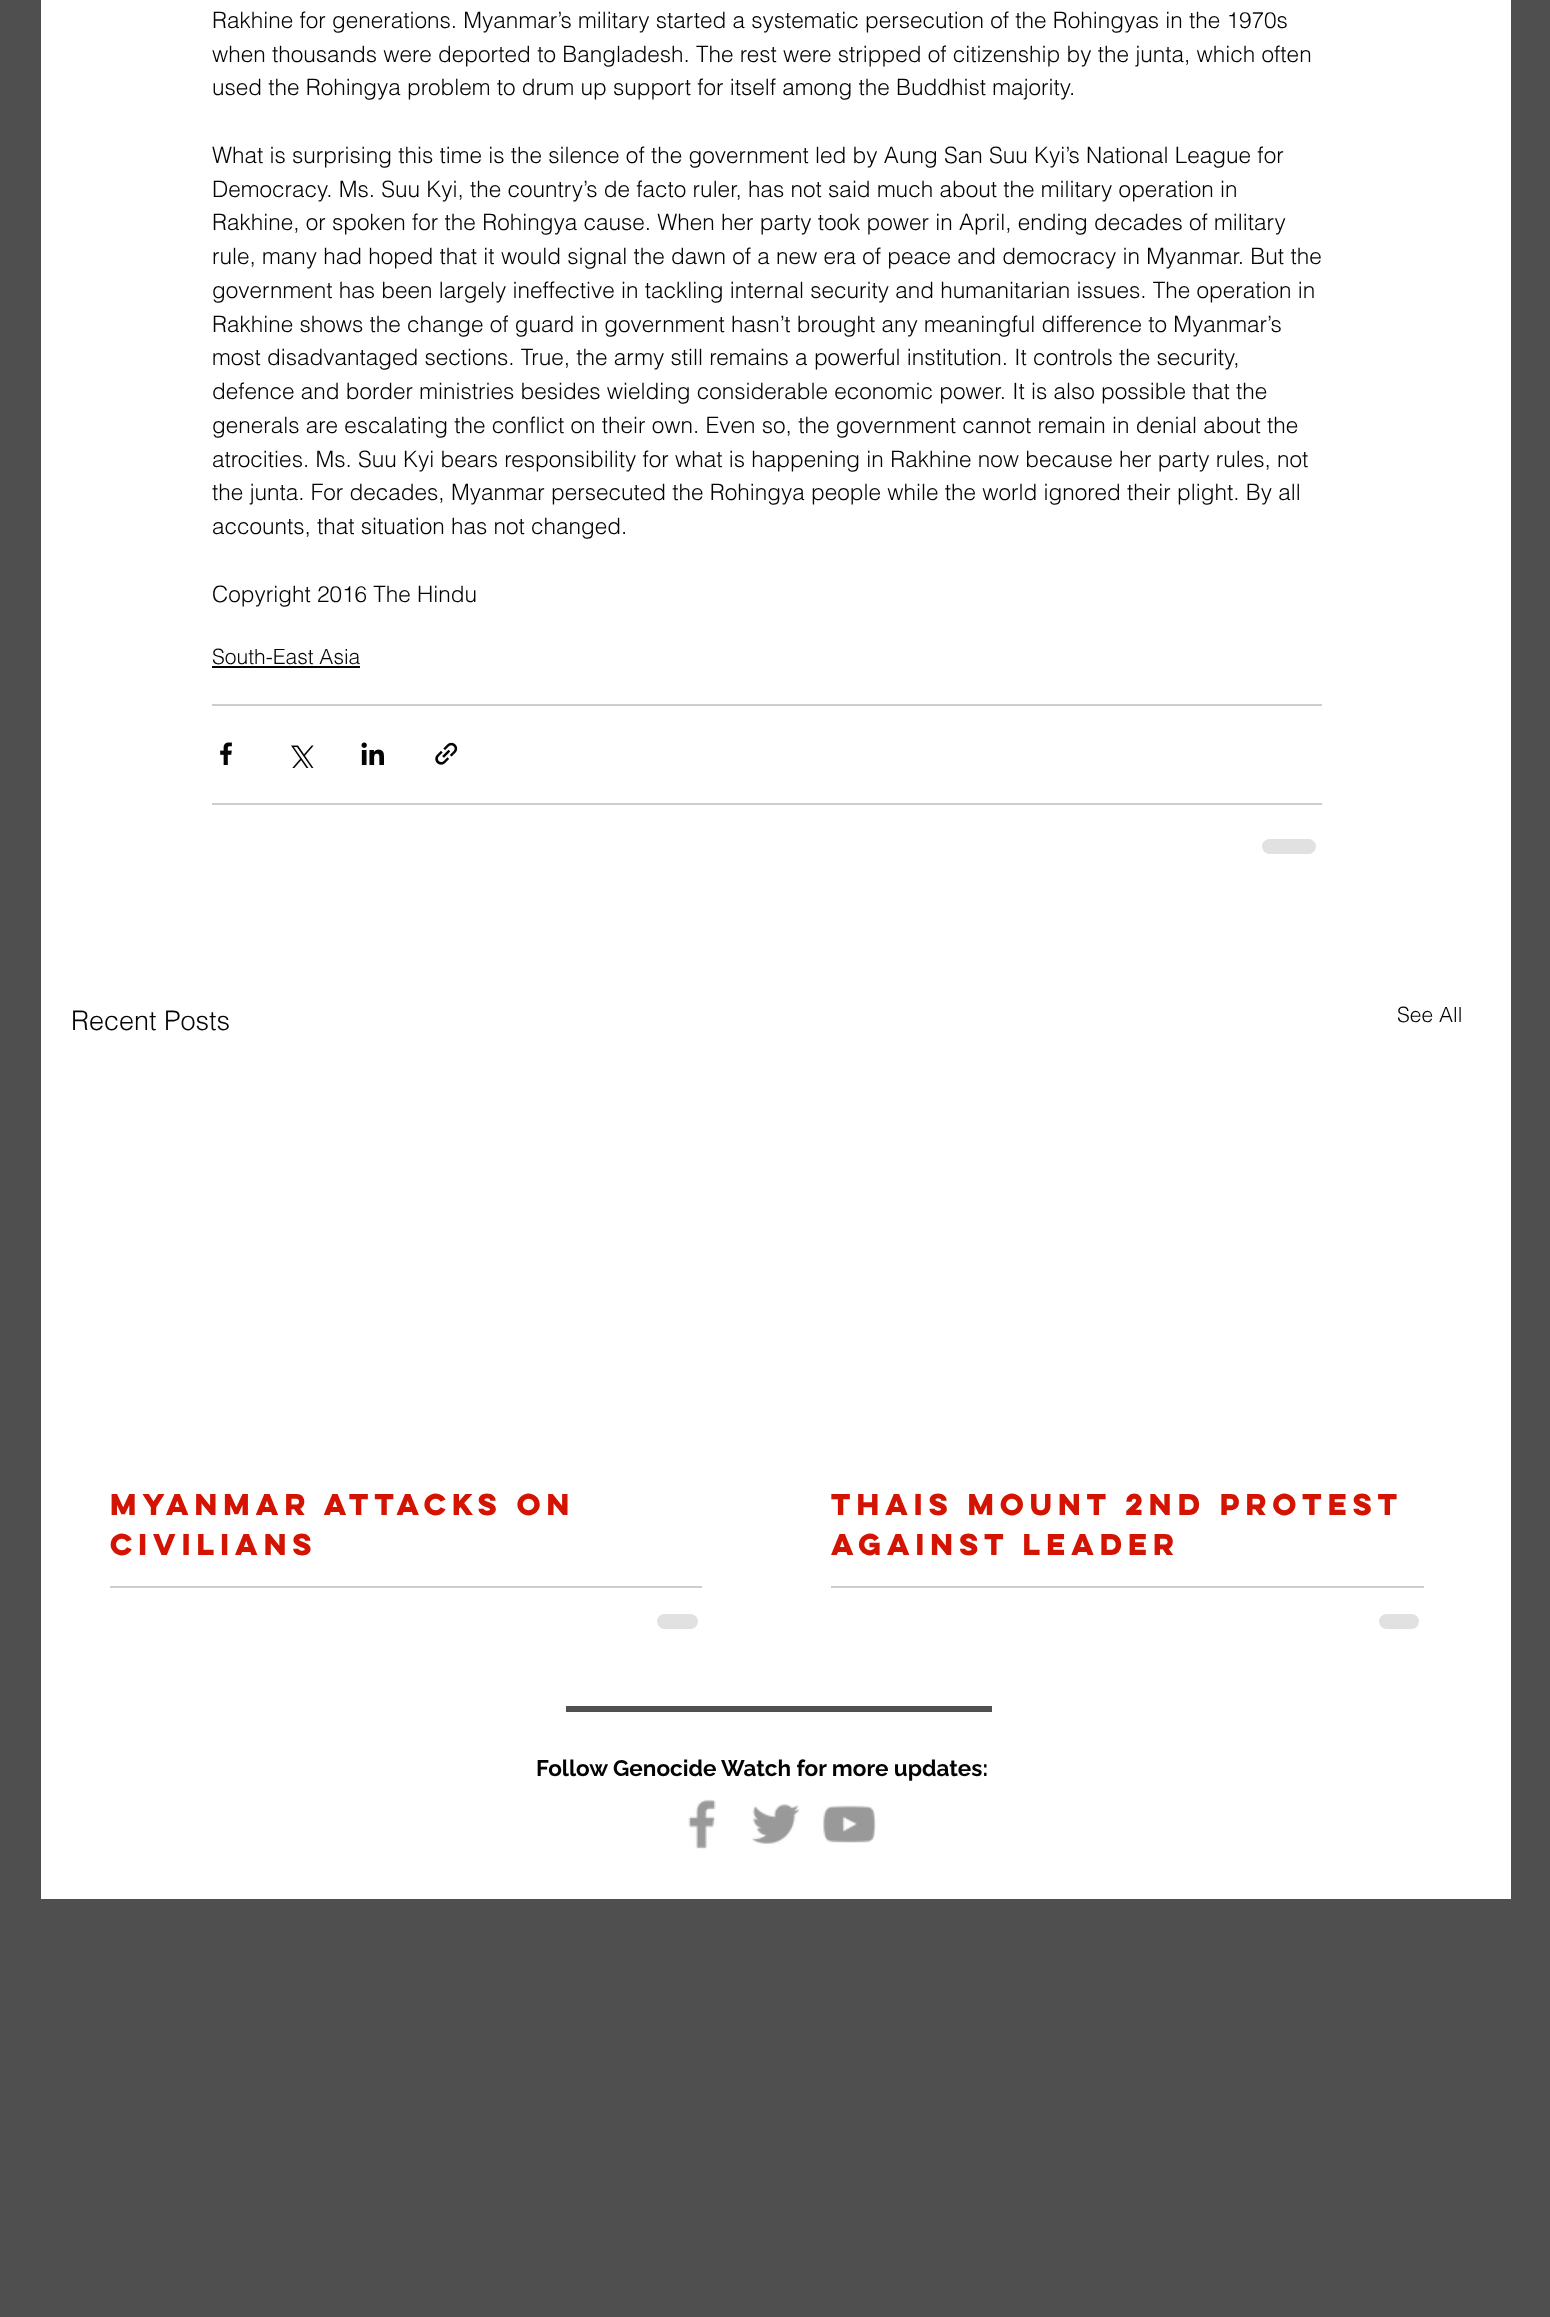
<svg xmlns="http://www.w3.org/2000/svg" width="1550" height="2317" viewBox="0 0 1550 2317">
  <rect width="100%" height="100%" fill="rgb(79,79,79)"/>
  <rect x="41" y="0" width="1470" height="1899" fill="rgb(255,255,255)"/>
  <g font-family="helvetica" font-size="22.5" font-weight="300" fill="rgb(3,3,3)">
    <text>
      <tspan x="212" y="28">Rakhine for generations. Myanmar’s military started a systematic persecution of the Rohingyas in the 1970s</tspan>
      <tspan x="212" y="62">when thousands were deported to Bangladesh. The rest were stripped of citizenship by the junta, which often</tspan>
      <tspan x="212" y="95">used the Rohingya problem to drum up support for itself among the Buddhist majority.</tspan>
    </text>
    <text>
      <tspan x="212" y="163">What is surprising this time is the silence of the government led by Aung San Suu Kyi’s National League for</tspan>
      <tspan x="212" y="197">Democracy. Ms. Suu Kyi, the country’s de facto ruler, has not said much about the military operation in</tspan>
      <tspan x="212" y="230">Rakhine, or spoken for the Rohingya cause. When her party took power in April, ending decades of military</tspan>
      <tspan x="212" y="264">rule, many had hoped that it would signal the dawn of a new era of peace and democracy in Myanmar. But the</tspan>
      <tspan x="212" y="298">government has been largely ineffective in tackling internal security and humanitarian issues. The operation in</tspan>
      <tspan x="212" y="332">Rakhine shows the change of guard in government hasn’t brought any meaningful difference to Myanmar’s</tspan>
      <tspan x="212" y="365">most disadvantaged sections. True, the army still remains a powerful institution. It controls the security,</tspan>
      <tspan x="212" y="399">defence and border ministries besides wielding considerable economic power. It is also possible that the</tspan>
      <tspan x="212" y="433">generals are escalating the conflict on their own. Even so, the government cannot remain in denial about the</tspan>
      <tspan x="212" y="467">atrocities. Ms. Suu Kyi bears responsibility for what is happening in Rakhine now because her party rules, not</tspan>
      <tspan x="212" y="500">the junta. For decades, Myanmar persecuted the Rohingya people while the world ignored their plight. By all</tspan>
      <tspan x="212" y="534">accounts, that situation has not changed.</tspan>
    </text>
    <text x="212" y="602">Copyright 2016 The Hindu</text>
  </g>
  <text x="212" y="664" font-family="helvetica" font-size="21" font-weight="300" fill="rgb(3,3,3)">South-East Asia</text>
  <rect x="212" y="666" width="148" height="2" fill="rgb(3,3,3)"/>
  <rect x="212" y="704" width="1110" height="2" fill="rgb(205,205,205)"/>
  <image x="220" y="742" width="12" height="23" href="pic1.png"/>
  <image x="291" y="745" width="23" height="23" href="pic2.png"/>
  <image x="361" y="742" width="23" height="23" href="pic3.png"/>
  <image x="435" y="742" width="23" height="23" href="pic4.png"/>
  <rect x="212" y="803" width="1110" height="2" fill="rgb(205,205,205)"/>
  <rect x="1262" y="839" width="54" height="15" rx="7.5" fill="rgb(225,225,225)"/>
  <text x="71" y="1030" font-family="helvetica" font-size="27" font-weight="300" fill="rgb(3,3,3)">Recent Posts</text>
  <text x="1397" y="1022" font-family="helvetica" font-size="21" font-weight="300" fill="rgb(3,3,3)">See All</text>
  <g font-family="'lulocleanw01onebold'" font-size="27" font-weight="bold" fill="rgb(212,20,2)">
    <text>
      <tspan x="110" y="1515">Myanmar attacks on</tspan>
      <tspan x="110" y="1555">Civilians</tspan>
    </text>
  </g>
  <rect x="110" y="1586" width="592" height="2" fill="rgb(205,205,205)"/>
  <rect x="657" y="1614" width="41" height="15" rx="7.5" fill="rgb(225,225,225)"/>
  <g font-family="'lulocleanw01onebold'" font-size="27" font-weight="bold" fill="rgb(212,20,2)">
    <text>
      <tspan x="831" y="1515">Thais Mount 2nd Protest</tspan>
      <tspan x="831" y="1555">Against Leader</tspan>
    </text>
  </g>
  <rect x="831" y="1586" width="593" height="2" fill="rgb(205,205,205)"/>
  <rect x="1379" y="1614" width="40" height="15" rx="7.5" fill="rgb(225,225,225)"/>
  <rect x="566" y="1706" width="426" height="6" fill="rgb(81,79,79)"/>
  <text x="536" y="1776" font-family="Raleway" font-size="22.5" font-weight="bold" fill="rgb(3,3,3)">Follow Genocide Watch for more updates:</text>
  <image x="688" y="1799" width="28" height="50" href="pic5.png"/>
  <image x="751" y="1804" width="49" height="41" href="pic6.png"/>
  <image x="823" y="1805" width="53" height="38" href="pic7.png"/>
</svg>
